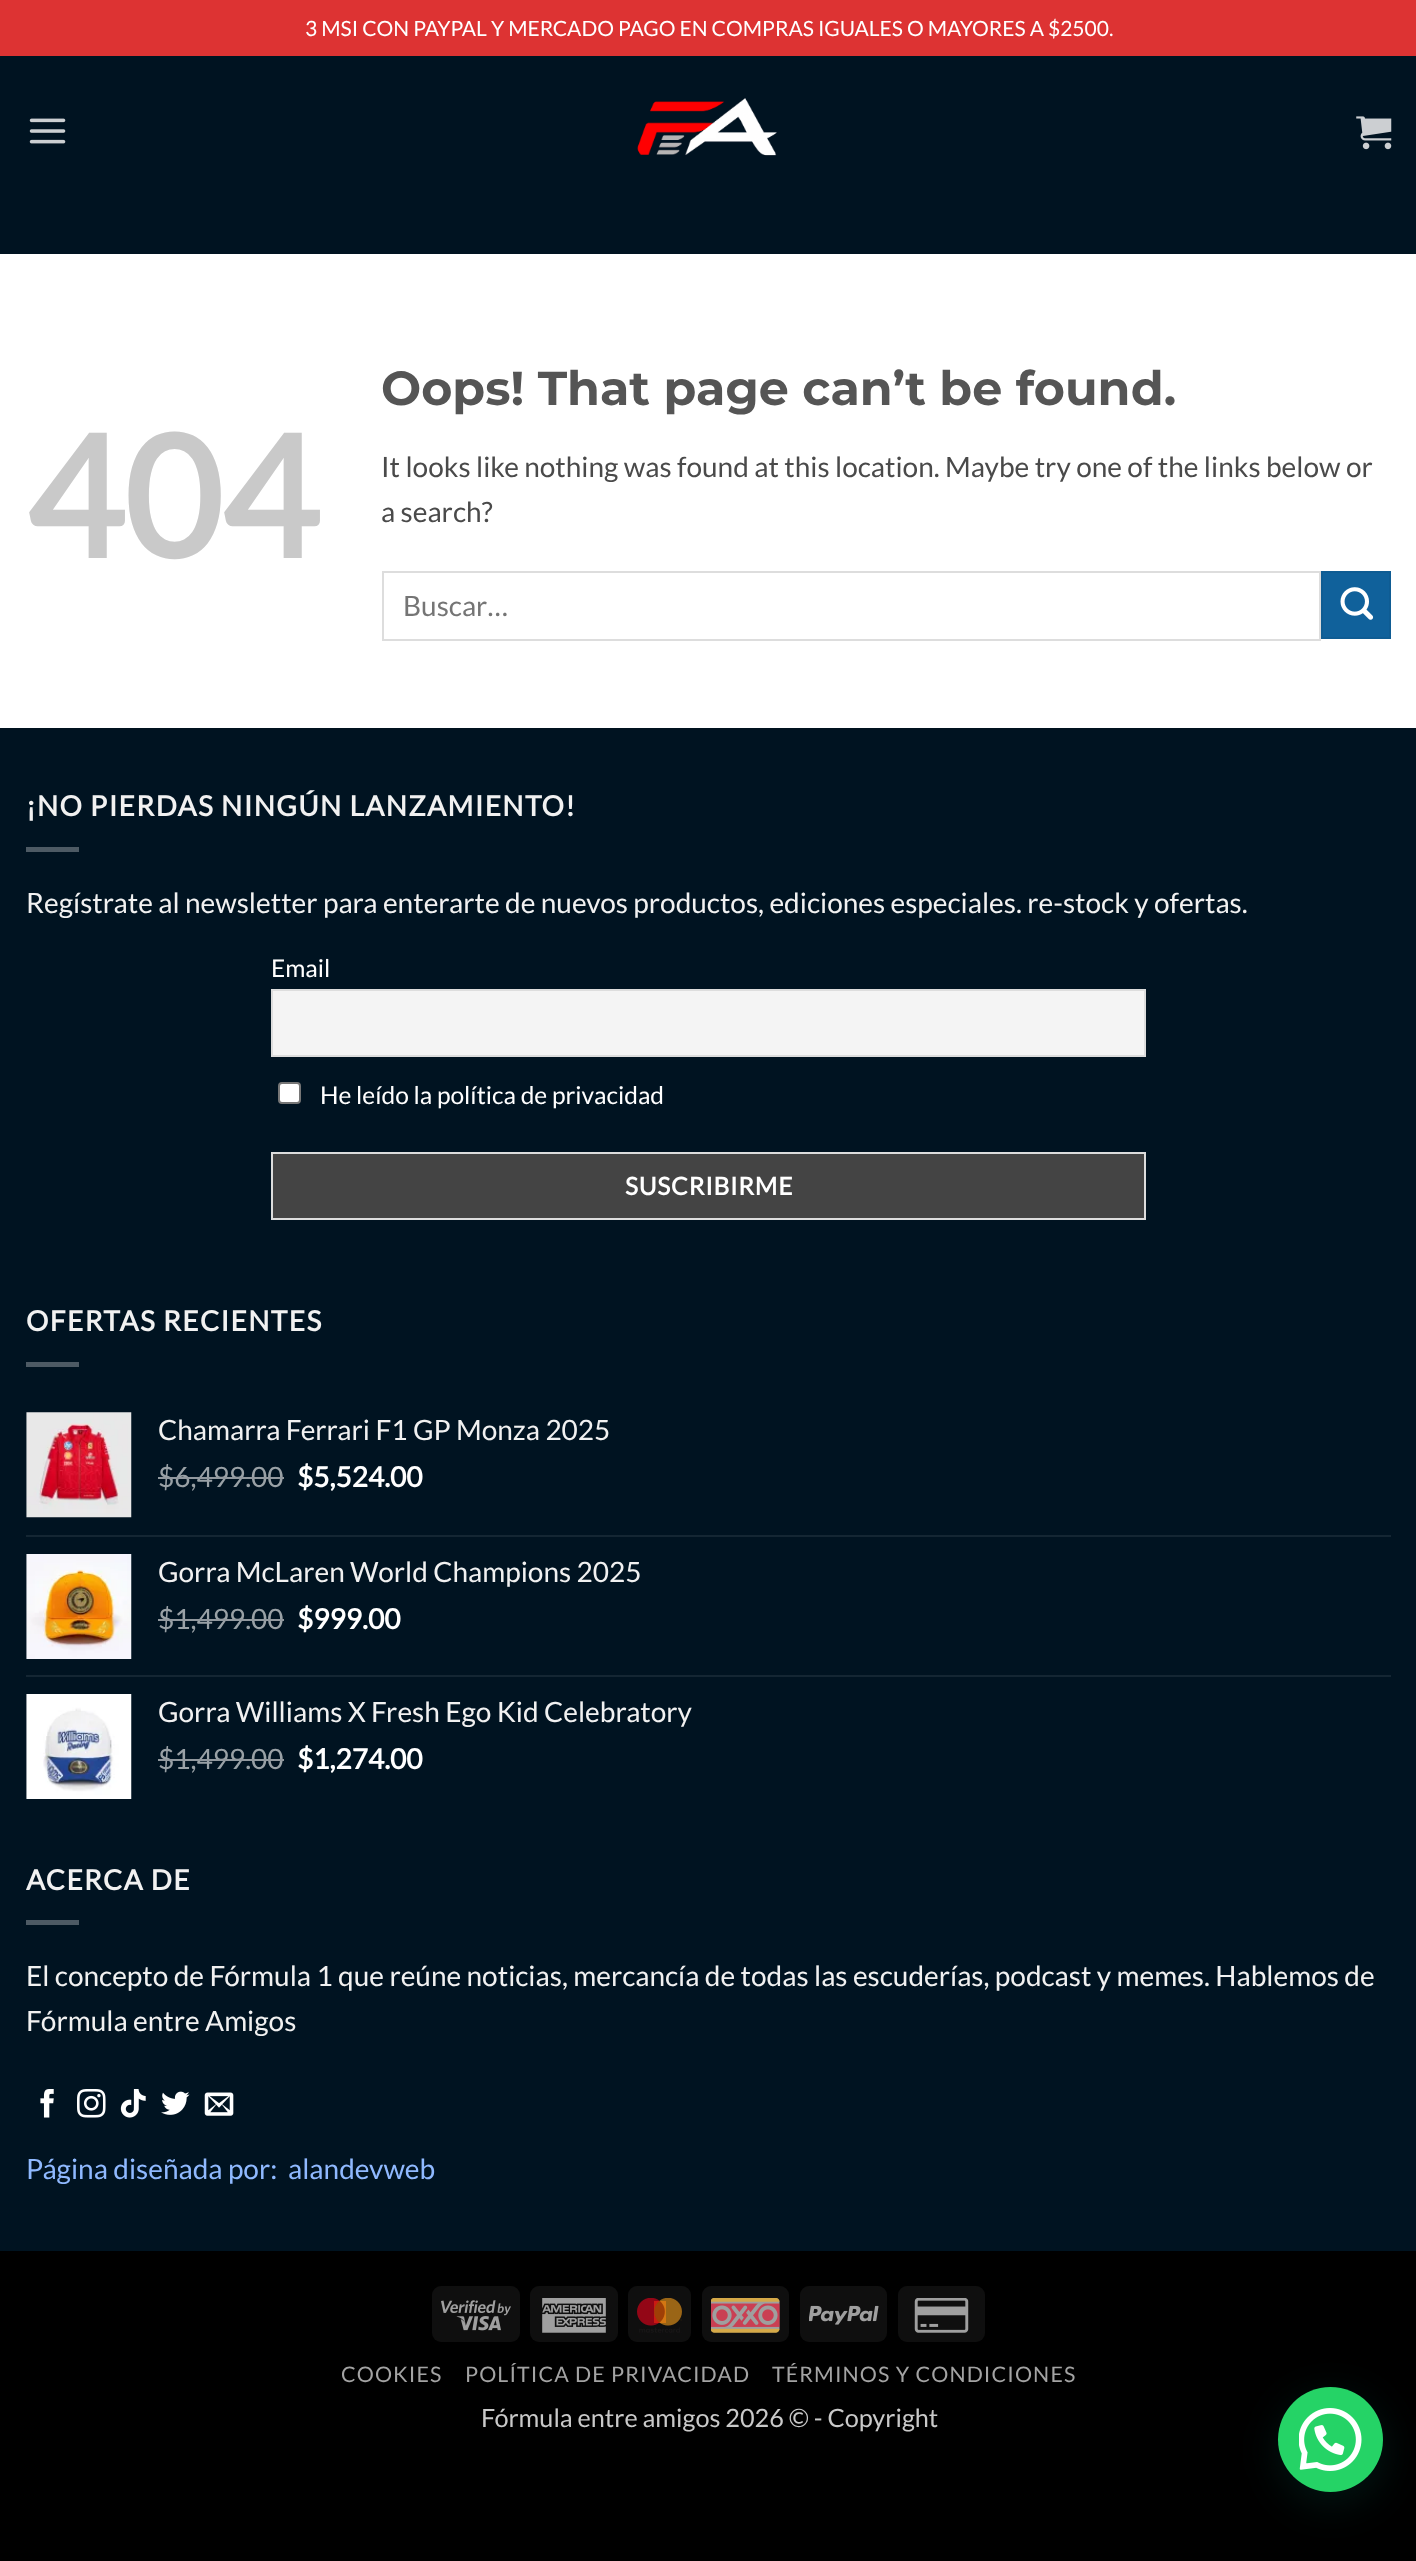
<svg xmlns="http://www.w3.org/2000/svg" width="1416" height="2561" viewBox="0 0 1416 2561">
  <rect width="100%" height="100%" fill="rgb(0,0,0)"/>
  <rect x="0" y="254" width="1416" height="474" fill="rgb(255,255,255)"/>
  <rect x="0" y="0" width="1416" height="56" fill="rgb(221,51,51)"/>
  <text x="305" y="36" font-family="Lato" font-size="21" fill="rgb(255,255,255)">3 MSI CON PAYPAL Y MERCADO PAGO EN COMPRAS IGUALES O MAYORES A $2500.</text>
  <rect x="0" y="56" width="1416" height="198" fill="rgb(0,19,33)"/>
  <image x="29" y="118" width="37" height="26" href="pic1.png"/>
  <image x="637" y="98" width="140" height="58" href="pic2.png"/>
  <image x="1356" y="116" width="36" height="34" href="pic3.png"/>
  <text x="26" y="558" font-family="Lato" font-size="168" font-weight="bold" fill="rgb(201,201,201)">404</text>
  <text x="381" y="405" font-family="Montserrat" font-size="47.6" font-weight="bold" fill="rgb(85,85,85)">Oops! That page can’t be found.</text>
  <g font-family="Lato" font-size="28" fill="rgb(74,74,74)">
    <text>
      <tspan x="381" y="477">It looks like nothing was found at this location. Maybe try one of the links below or</tspan>
      <tspan x="381" y="522">a search?</tspan>
    </text>
  </g>
  <rect x="383" y="572" width="937" height="68" fill="none" stroke="rgb(221,221,221)" stroke-width="2"/>
  <text x="403" y="616" font-family="Lato" font-size="28" fill="rgb(117,117,117)">Buscar…</text>
  <rect x="1322" y="572" width="68" height="66" fill="rgb(16,97,155)" stroke="rgb(15,92,147)" stroke-width="2"/>
  <image x="1340" y="587" width="34" height="33" href="pic4.png"/>
  <rect x="0" y="730" width="1416" height="1521" fill="rgb(0,19,33)"/>
  <rect x="0" y="728" width="1416" height="2" fill="rgb(0,18,31)"/>
  <text x="26" y="816" font-family="Lato" font-size="28" font-weight="bold" letter-spacing="1.4" fill="rgb(241,241,241)">¡NO PIERDAS NINGÚN LANZAMIENTO!</text>
  <rect x="26" y="847" width="53" height="5" fill="rgb(77,90,100)"/>
  <text x="26" y="913" font-family="Lato" font-size="28" fill="rgb(241,241,241)">Regístrate al newsletter para enterarte de nuevos productos, ediciones especiales. re-stock y ofertas.</text>
  <text x="271" y="977" font-family="Lato" font-size="24.5" fill="rgb(255,255,255)">Email</text>
  <rect x="272" y="990" width="873" height="66" fill="rgb(244,244,244)" stroke="rgb(221,221,221)" stroke-width="2"/>
  <rect x="279" y="1083" width="21" height="20" rx="3" fill="rgb(255,255,255)" stroke="rgb(118,118,118)" stroke-width="2"/>
  <text x="320" y="1104" font-family="Lato" font-size="24.5" fill="rgb(255,255,255)">He leído la política de privacidad</text>
  <rect x="272" y="1153" width="873" height="66" fill="rgb(68,68,68)" stroke="rgb(221,221,221)" stroke-width="2"/>
  <text x="625" y="1195" font-family="Lato" font-size="24.5" font-weight="bold" letter-spacing="0.75" fill="rgb(255,255,255)">SUSCRIBIRME</text>
  <text x="26" y="1331" font-family="Lato" font-size="28" font-weight="bold" letter-spacing="1.4" fill="rgb(241,241,241)">OFERTAS RECIENTES</text>
  <rect x="26" y="1362" width="53" height="5" fill="rgb(77,90,100)"/>
  <image x="26" y="1412" width="106" height="106" href="pic5.png"/>
  <text x="158" y="1440" font-family="Lato" font-size="28" fill="rgb(241,241,241)">Chamarra Ferrari F1 GP Monza 2025</text>
  <text x="158" y="1487" font-family="Lato" font-size="28" fill="rgb(153,161,166)">$6,499.00</text>
  <rect x="158" y="1477" width="126" height="2" fill="rgb(145,152,158)"/>
  <text x="297" y="1487" font-family="Lato" font-size="28" font-weight="bold" fill="rgb(255,255,255)">$5,524.00</text>
  <rect x="26" y="1535" width="1365" height="2" fill="rgb(20,38,51)"/>
  <image x="26" y="1554" width="106" height="105" href="pic6.png"/>
  <text x="158" y="1582" font-family="Lato" font-size="28" fill="rgb(241,241,241)">Gorra McLaren World Champions 2025</text>
  <text x="158" y="1629" font-family="Lato" font-size="28" fill="rgb(153,161,166)">$1,499.00</text>
  <rect x="158" y="1619" width="126" height="2" fill="rgb(145,152,158)"/>
  <text x="297" y="1629" font-family="Lato" font-size="28" font-weight="bold" fill="rgb(255,255,255)">$999.00</text>
  <rect x="26" y="1675" width="1365" height="2" fill="rgb(20,38,51)"/>
  <image x="26" y="1694" width="106" height="105" href="pic7.png"/>
  <text x="158" y="1722" font-family="Lato" font-size="28" fill="rgb(241,241,241)">Gorra Williams X Fresh Ego Kid Celebratory</text>
  <text x="158" y="1769" font-family="Lato" font-size="28" fill="rgb(153,161,166)">$1,499.00</text>
  <rect x="158" y="1759" width="126" height="2" fill="rgb(145,152,158)"/>
  <text x="297" y="1769" font-family="Lato" font-size="28" font-weight="bold" fill="rgb(255,255,255)">$1,274.00</text>
  <text x="26" y="1890" font-family="Lato" font-size="28" font-weight="bold" letter-spacing="1.4" fill="rgb(241,241,241)">ACERCA DE</text>
  <rect x="26" y="1920" width="53" height="5" fill="rgb(77,90,100)"/>
  <g font-family="Lato" font-size="28" fill="rgb(241,241,241)">
    <text>
      <tspan x="26" y="1986">El concepto de Fórmula 1 que reúne noticias, mercancía de todas las escuderías, podcast y memes. Hablemos de</tspan>
      <tspan x="26" y="2031">Fórmula entre Amigos</tspan>
    </text>
  </g>
  <image x="40" y="2089" width="14" height="29" href="pic8.png"/>
  <image x="77" y="2089" width="29" height="29" href="pic9.png"/>
  <image x="120" y="2089" width="26" height="29" href="pic10.png"/>
  <image x="161" y="2091" width="29" height="24" href="pic11.png"/>
  <image x="204" y="2092" width="30" height="24" href="pic12.png"/>
  <g font-family="Lato" font-size="28" fill="rgb(143,185,255)">
    <text x="26" y="2179">Página diseñada por:</text>
    <text x="288" y="2179">alandevweb</text>
  </g>
  <rect x="432" y="2286" width="88" height="56" rx="9" fill="rgb(15,15,15)"/>
  <image x="441" y="2300" width="70" height="31" href="pic13.png"/>
  <rect x="530" y="2286" width="88" height="56" rx="9" fill="rgb(15,15,15)"/>
  <image x="542" y="2298" width="64" height="35" href="pic14.png"/>
  <rect x="628" y="2286" width="63" height="56" rx="9" fill="rgb(15,15,15)"/>
  <image x="637" y="2298" width="45" height="35" href="pic15.png"/>
  <rect x="702" y="2286" width="87" height="56" rx="9" fill="rgb(15,15,15)"/>
  <image x="711" y="2298" width="69" height="35" href="pic16.png"/>
  <rect x="800" y="2286" width="87" height="56" rx="9" fill="rgb(15,15,15)"/>
  <image x="809" y="2305" width="70" height="20" href="pic17.png"/>
  <rect x="898" y="2286" width="87" height="56" rx="9" fill="rgb(15,15,15)"/>
  <image x="914" y="2298" width="55" height="35" href="pic18.png"/>
  <g font-family="Lato" font-size="21.4" letter-spacing="1.1" fill="rgb(163,163,163)">
    <text x="341" y="2382">COOKIES</text>
    <text x="465" y="2382">POLÍTICA DE PRIVACIDAD</text>
    <text x="772" y="2382">TÉRMINOS Y CONDICIONES</text>
  </g>
  <text x="481" y="2427" font-family="Lato" font-size="25.25" fill="rgb(201,201,201)">Fórmula entre amigos 2026 © - Copyright</text>
  <rect x="1279" y="2398" width="105" height="105" rx="52.5" fill="rgba(7,94,84,0.24)" filter="blur(21px)"/>
  <circle cx="1330.5" cy="2439.5" r="52.5" fill="rgb(37,211,102)"/>
  <image x="1299" y="2408" width="63" height="63" href="pic19.png"/>
</svg>
